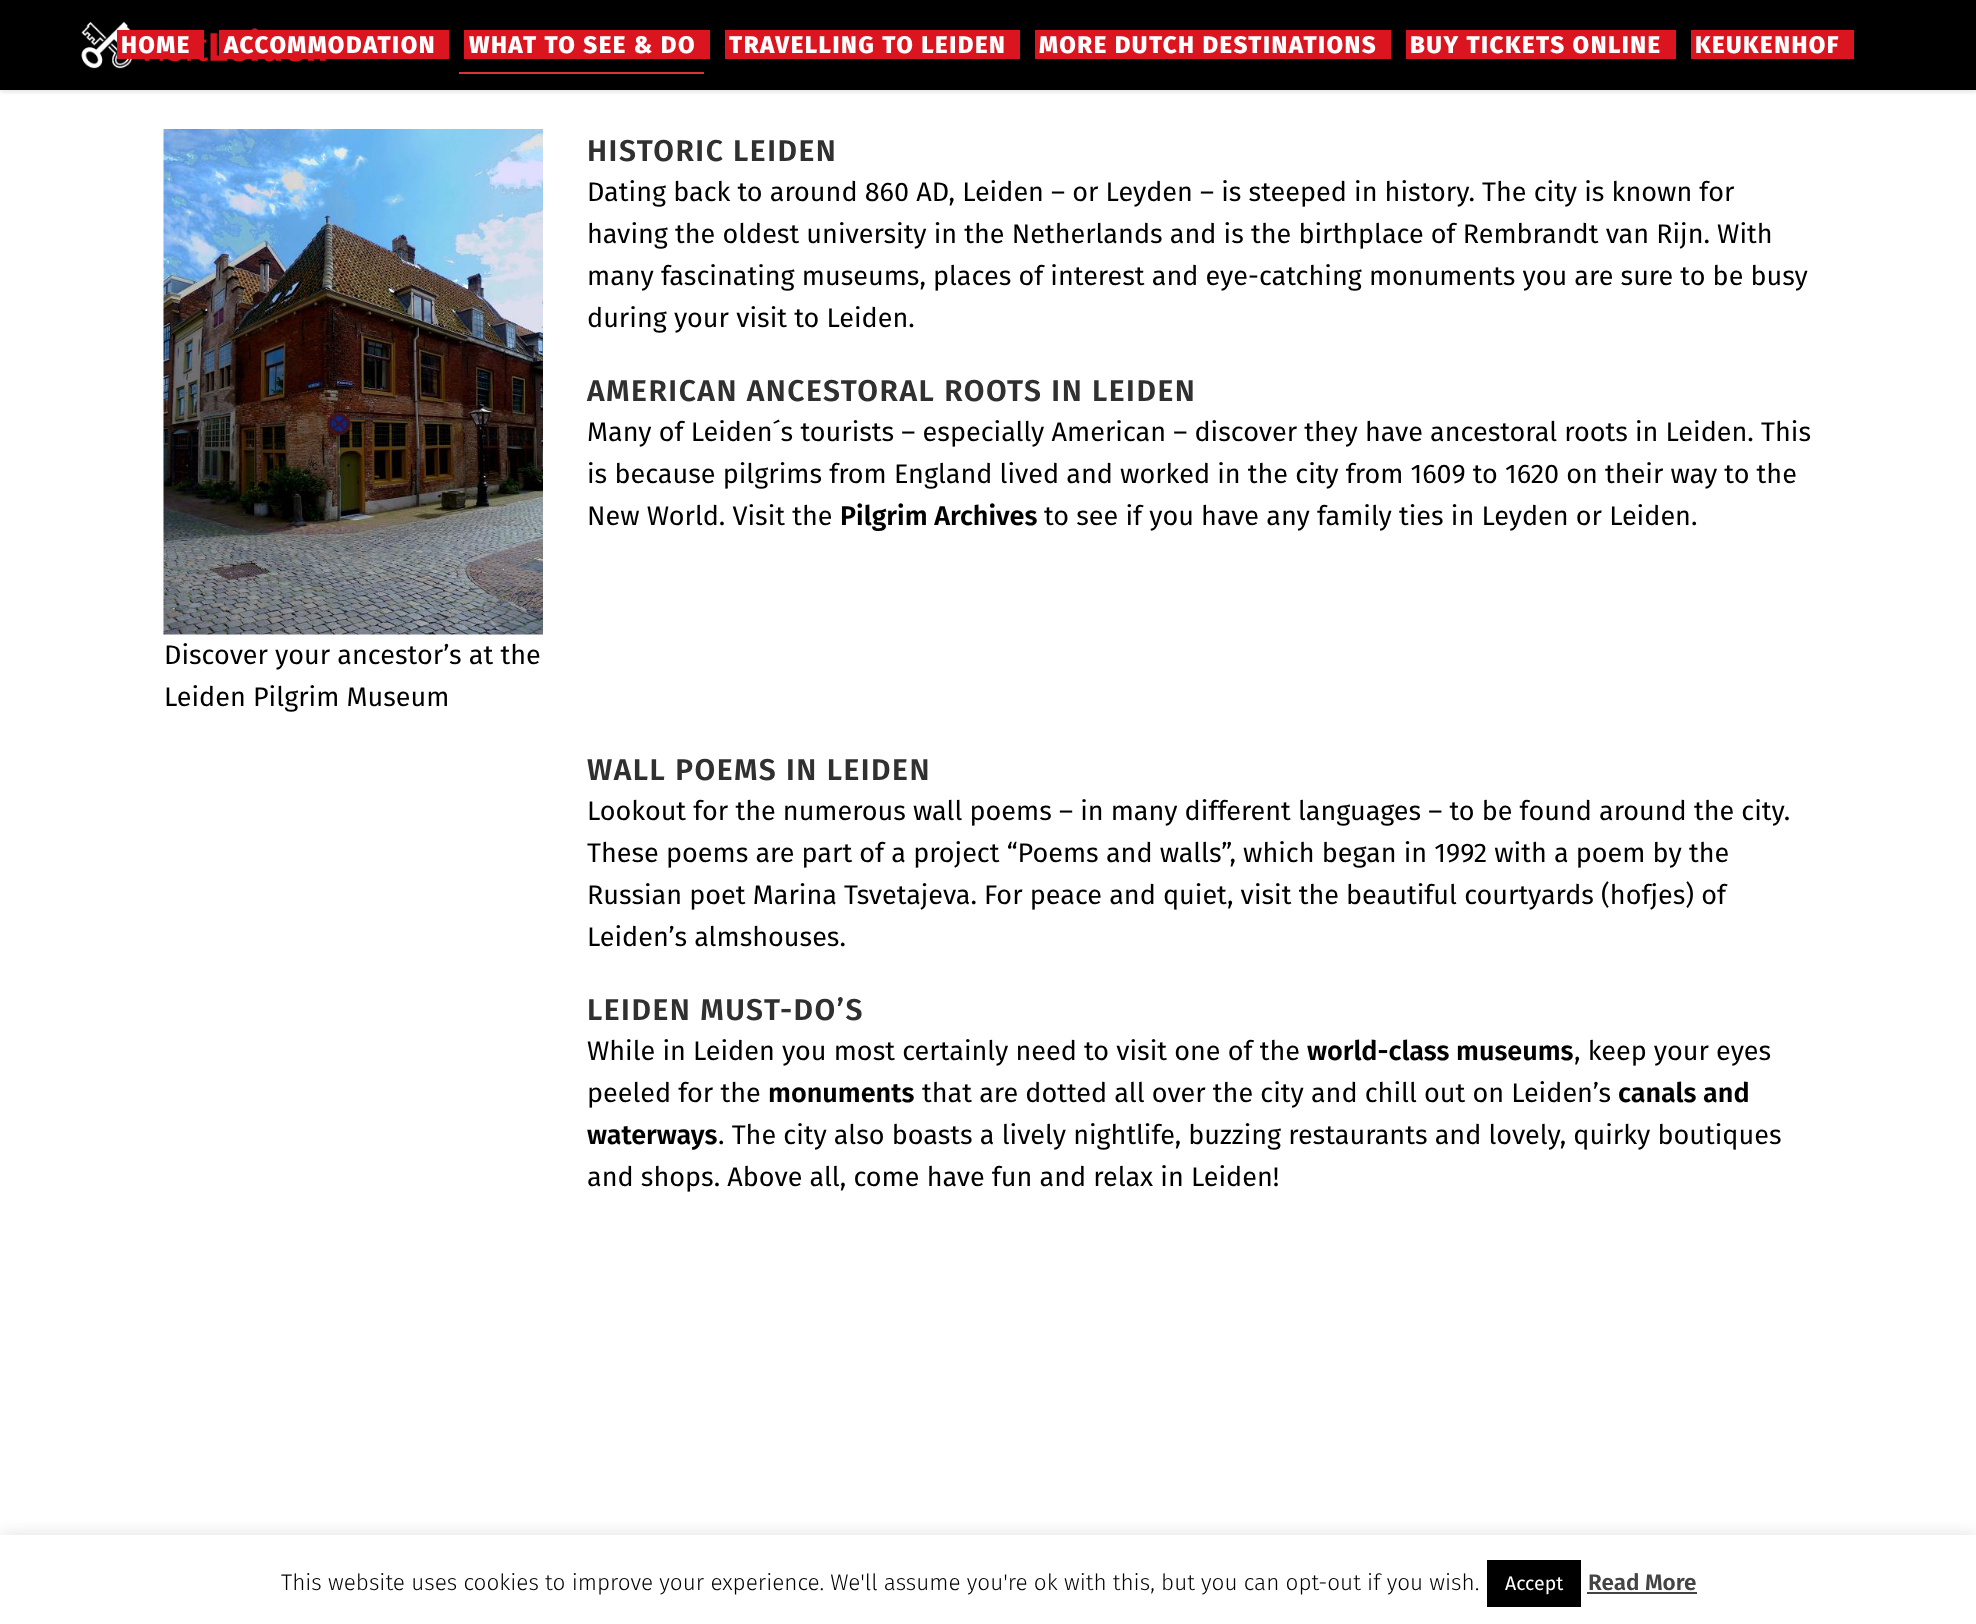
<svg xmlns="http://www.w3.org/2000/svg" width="1976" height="1624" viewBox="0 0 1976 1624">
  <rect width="100%" height="100%" fill="rgb(255,255,255)"/>
  <rect x="0" y="2" width="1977" height="90" fill="rgba(0,0,0,0.11)" filter="blur(2px)"/>
  <rect x="0" y="0" width="1976" height="90" fill="rgb(0,0,0)"/>
  <image x="81" y="21" width="246" height="48" href="pic1.png"/>
  <rect x="117" y="30" width="87" height="29" fill="rgb(219,21,31)"/>
  <text x="121" y="53" font-family="Fira Sans" font-size="24" font-weight="800" letter-spacing="1.5" fill="rgb(255,255,255)">HOME</text>
  <rect x="219" y="30" width="230" height="29" fill="rgb(219,21,31)"/>
  <text x="224" y="53" font-family="Fira Sans" font-size="24" font-weight="800" letter-spacing="1.5" fill="rgb(255,255,255)">ACCOMMODATION</text>
  <rect x="464" y="30" width="246" height="29" fill="rgb(219,21,31)"/>
  <text x="469" y="53" font-family="Fira Sans" font-size="24" font-weight="800" letter-spacing="1.5" fill="rgb(255,255,255)">WHAT TO SEE &amp; DO</text>
  <rect x="459" y="72" width="245" height="2" fill="rgb(221,51,51)"/>
  <rect x="725" y="30" width="295" height="29" fill="rgb(219,21,31)"/>
  <text x="729" y="53" font-family="Fira Sans" font-size="24" font-weight="800" letter-spacing="1.5" fill="rgb(255,255,255)">TRAVELLING TO LEIDEN</text>
  <rect x="1035" y="30" width="356" height="29" fill="rgb(219,21,31)"/>
  <text x="1039" y="53" font-family="Fira Sans" font-size="24" font-weight="800" letter-spacing="1.5" fill="rgb(255,255,255)">MORE DUTCH DESTINATIONS</text>
  <rect x="1406" y="30" width="270" height="29" fill="rgb(219,21,31)"/>
  <text x="1410" y="53" font-family="Fira Sans" font-size="24" font-weight="800" letter-spacing="1.5" fill="rgb(255,255,255)">BUY TICKETS ONLINE</text>
  <rect x="1691" y="30" width="163" height="29" fill="rgb(219,21,31)"/>
  <text x="1695" y="53" font-family="Fira Sans" font-size="24" font-weight="800" letter-spacing="1.5" fill="rgb(255,255,255)">KEUKENHOF</text>
  <text x="587" y="161" font-family="Fira Sans" font-size="30" font-weight="600" letter-spacing="1.5" fill="rgb(48,48,48)">HISTORIC LEIDEN</text>
  <g font-family="Fira Sans" font-size="27" fill="rgb(0,0,0)">
    <text>
      <tspan x="587" y="201">Dating back to around 860 AD, Leiden – or Leyden – is steeped in history. The city is known for</tspan>
      <tspan x="587" y="243">having the oldest university in the Netherlands and is the birthplace of Rembrandt van Rijn. With</tspan>
      <tspan x="587" y="285">many fascinating museums, places of interest and eye-catching monuments you are sure to be busy</tspan>
      <tspan x="587" y="327">during your visit to Leiden.</tspan>
    </text>
  </g>
  <text x="587" y="401" font-family="Fira Sans" font-size="30" font-weight="600" letter-spacing="1.5" fill="rgb(48,48,48)">AMERICAN ANCESTORAL ROOTS IN LEIDEN</text>
  <g font-family="Fira Sans" font-size="27" fill="rgb(0,0,0)">
    <text>
      <tspan x="587" y="441">Many of Leiden´s tourists – especially American – discover they have ancestoral roots in Leiden. This</tspan>
      <tspan x="587" y="483">is because pilgrims from England lived and worked in the city from 1609 to 1620 on their way to the</tspan>
      <tspan x="587" y="525">New World. Visit the</tspan>
    </text>
  </g>
  <text x="840" y="525" font-family="Fira Sans" font-size="27" font-weight="600" fill="rgb(0,0,0)">Pilgrim Archives</text>
  <text x="1044" y="525" font-family="Fira Sans" font-size="27" fill="rgb(0,0,0)">to see if you have any family ties in Leyden or Leiden.</text>
  <image x="163" y="129" width="380" height="506" href="pic2.png"/>
  <g font-family="Fira Sans" font-size="27" fill="rgb(0,0,0)">
    <text>
      <tspan x="164" y="664">Discover your ancestor’s at the</tspan>
      <tspan x="164" y="706">Leiden Pilgrim Museum</tspan>
    </text>
  </g>
  <text x="587" y="780" font-family="Fira Sans" font-size="30" font-weight="600" letter-spacing="1.5" fill="rgb(48,48,48)">WALL POEMS IN LEIDEN</text>
  <g font-family="Fira Sans" font-size="27" fill="rgb(0,0,0)">
    <text>
      <tspan x="587" y="820">Lookout for the numerous wall poems – in many different languages – to be found around the city.</tspan>
      <tspan x="587" y="862">These poems are part of a project “Poems and walls”, which began in 1992 with a poem by the</tspan>
      <tspan x="587" y="904">Russian poet Marina Tsvetajeva. For peace and quiet, visit the beautiful courtyards (hofjes) of</tspan>
      <tspan x="587" y="946">Leiden’s almshouses.</tspan>
    </text>
  </g>
  <text x="587" y="1020" font-family="Fira Sans" font-size="30" font-weight="600" letter-spacing="1.5" fill="rgb(48,48,48)">LEIDEN MUST-DO’S</text>
  <text x="587" y="1060" font-family="Fira Sans" font-size="27" fill="rgb(0,0,0)">While in Leiden you most certainly need to visit one of the</text>
  <text x="1307" y="1060" font-family="Fira Sans" font-size="27" font-weight="600" fill="rgb(0,0,0)">world-class museums</text>
  <g font-family="Fira Sans" font-size="27" fill="rgb(0,0,0)">
    <text x="1574" y="1060">, keep your eyes</text>
    <text x="587" y="1102">peeled for the</text>
  </g>
  <text x="768" y="1102" font-family="Fira Sans" font-size="27" font-weight="600" fill="rgb(0,0,0)">monuments</text>
  <text x="922" y="1102" font-family="Fira Sans" font-size="27" fill="rgb(0,0,0)">that are dotted all over the city and chill out on Leiden’s</text>
  <g font-family="Fira Sans" font-size="27" font-weight="600" fill="rgb(0,0,0)">
    <text x="1618" y="1102">canals and</text>
    <text x="587" y="1144">waterways</text>
  </g>
  <g font-family="Fira Sans" font-size="27" fill="rgb(0,0,0)">
    <text x="718" y="1144">. The city also boasts a lively nightlife, buzzing restaurants and lovely, quirky boutiques</text>
    <text x="587" y="1186">and shops. Above all, come have fun and relax in Leiden!</text>
  </g>
  <rect x="0" y="1533" width="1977" height="90" fill="rgba(172,171,171,0.3)" filter="blur(7.5px)"/>
  <rect x="0" y="1535" width="1976" height="89" fill="rgb(255,255,255)"/>
  <text x="281" y="1590" font-family="Fira Sans" font-size="22.5" font-weight="300" fill="rgb(0,0,0)">This website uses cookies to improve your experience. We'll assume you're ok with this, but you can opt-out if you wish.</text>
  <rect x="1487" y="1560" width="94" height="47" fill="rgb(0,0,0)"/>
  <text x="1505" y="1590" font-family="Fira Sans" font-size="19.5" fill="rgb(255,255,255)">Accept</text>
  <text x="1588" y="1590" font-family="Fira Sans" font-size="22.5" font-weight="600" fill="rgb(68,68,68)">Read More</text>
  <rect x="1587" y="1592" width="110" height="2" fill="rgb(68,68,68)"/>
</svg>
